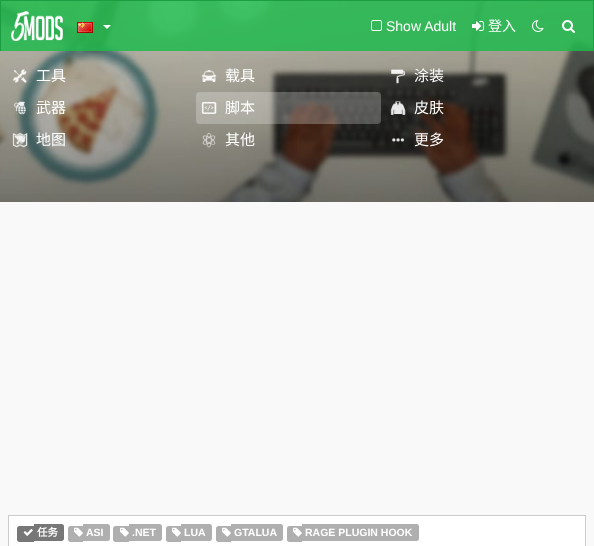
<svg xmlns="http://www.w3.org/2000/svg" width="594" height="546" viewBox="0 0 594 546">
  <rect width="100%" height="100%" fill="rgb(249,249,249)"/>
  <image x="0" y="1" width="594" height="201" href="pic7.png"/>
  <rect x="1" y="1" width="592" height="50" fill="rgba(32,186,78,0.85)"/>
  <rect x="0" y="0" width="594" height="1" fill="rgb(27,158,66)"/>
  <rect x="593" y="0" width="1" height="51" fill="rgb(27,158,66)"/>
  <rect x="0" y="0" width="1" height="51" fill="rgb(27,158,66)"/>
  <image x="11" y="11" width="52" height="30" href="pic1.png"/>
  <image x="77" y="22" width="16" height="11" href="pic2.png"/>
  <path d="M103 25H111L107 29Z" fill="rgb(255,255,255)"/>
  <image x="371" y="20" width="11" height="11" href="pic3.png"/>
  <text x="386" y="31" font-family="Liberation Sans" font-size="14" fill="rgb(255,255,255)">Show Adult</text>
  <image x="472" y="21" width="12" height="10" href="pic4.png"/>
  <text x="488" y="31" font-family="Noto Sans CJK SC" font-size="14" fill="rgb(255,255,255)">登入</text>
  <image x="532" y="20" width="12" height="12" href="pic5.png"/>
  <image x="562" y="20" width="13" height="13" href="pic6.png"/>
  <image x="13" y="69" width="14" height="14" href="pic8.png"/>
  <text x="36" y="81" font-family="Noto Sans CJK SC" font-size="15" fill="rgb(255,255,255)">工具</text>
  <image x="201" y="70" width="16" height="12" href="pic9.png"/>
  <text x="225" y="81" font-family="Noto Sans CJK SC" font-size="15" fill="rgb(255,255,255)">载具</text>
  <image x="391" y="69" width="14" height="15" href="pic10.png"/>
  <text x="414" y="81" font-family="Noto Sans CJK SC" font-size="15" fill="rgb(255,255,255)">涂装</text>
  <image x="14" y="101" width="12" height="14" href="pic11.png"/>
  <text x="36" y="113" font-family="Noto Sans CJK SC" font-size="15" fill="rgb(255,255,255)">武器</text>
  <rect x="196" y="92" width="185" height="32" rx="4" fill="rgba(255,255,255,0.25)"/>
  <image x="201" y="102" width="16" height="12" href="pic12.png"/>
  <text x="225" y="113" font-family="Noto Sans CJK SC" font-size="15" fill="rgb(255,255,255)">脚本</text>
  <image x="390" y="101" width="16" height="14" href="pic13.png"/>
  <text x="414" y="113" font-family="Noto Sans CJK SC" font-size="15" fill="rgb(255,255,255)">皮肤</text>
  <image x="12" y="133" width="16" height="15" href="pic14.png"/>
  <text x="36" y="145" font-family="Noto Sans CJK SC" font-size="15" fill="rgb(255,255,255)">地图</text>
  <image x="202" y="132" width="14" height="16" href="pic15.png"/>
  <text x="225" y="145" font-family="Noto Sans CJK SC" font-size="15" fill="rgb(255,255,255)">其他</text>
  <image x="392" y="138" width="12" height="4" href="pic16.png"/>
  <text x="414" y="145" font-family="Noto Sans CJK SC" font-size="15" fill="rgb(255,255,255)">更多</text>
  <rect x="8.5" y="515.5" width="577" height="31" fill="rgb(255,255,255)" stroke="rgb(204,204,204)"/>
  <path d="M19.5 526H34V542H19.5C18 542 17 541 17 539.5V528.5C17 527 18 526 19.5 526Z" fill="rgb(119,119,119)"/>
  <path d="M34 524H61.5C63 524 64 525 64 526.5V538.5C64 540 63 541 61.5 541H34Z" fill="rgb(119,119,119)"/>
  <image x="23" y="529" width="10" height="7" href="pic17.png"/>
  <text x="37" y="536" font-family="Noto Sans CJK SC" font-size="10.5" font-weight="bold" fill="rgb(255,255,255)">任务</text>
  <path d="M70.5 526H83V542H70.5C69 542 68 541 68 539.5V528.5C68 527 69 526 70.5 526Z" fill="rgb(175,175,175)"/>
  <path d="M83 524H107.5C109 524 110 525 110 526.5V538.5C110 540 109 541 107.5 541H83Z" fill="rgb(175,175,175)"/>
  <image x="74" y="527" width="9" height="10" href="pic18.png"/>
  <text x="86" y="536" font-family="Liberation Sans" font-size="10.5" font-weight="bold" fill="rgb(255,255,255)">ASI</text>
  <path d="M115.5 526H129V542H115.5C114 542 113 541 113 539.5V528.5C113 527 114 526 115.5 526Z" fill="rgb(175,175,175)"/>
  <path d="M129 524H159.5C161 524 162 525 162 526.5V538.5C162 540 161 541 159.5 541H129Z" fill="rgb(175,175,175)"/>
  <image x="120" y="527" width="9" height="10" href="pic18.png"/>
  <text x="132" y="536" font-family="Liberation Sans" font-size="10.5" font-weight="bold" fill="rgb(255,255,255)">.NET</text>
  <path d="M168.5 526H181V542H168.5C167 542 166 541 166 539.5V528.5C166 527 167 526 168.5 526Z" fill="rgb(175,175,175)"/>
  <path d="M181 524H209.5C211 524 212 525 212 526.5V538.5C212 540 211 541 209.5 541H181Z" fill="rgb(175,175,175)"/>
  <image x="172" y="527" width="9" height="10" href="pic18.png"/>
  <text x="184" y="536" font-family="Liberation Sans" font-size="10.5" font-weight="bold" fill="rgb(255,255,255)">LUA</text>
  <path d="M218.5 526H231V542H218.5C217 542 216 541 216 539.5V528.5C216 527 217 526 218.5 526Z" fill="rgb(175,175,175)"/>
  <path d="M231 524H280.5C282 524 283 525 283 526.5V538.5C283 540 282 541 280.5 541H231Z" fill="rgb(175,175,175)"/>
  <image x="222" y="527" width="9" height="10" href="pic18.png"/>
  <text x="234" y="536" font-family="Liberation Sans" font-size="10.5" font-weight="bold" fill="rgb(255,255,255)">GTALUA</text>
  <path d="M289.5 526H302V542H289.5C288 542 287 541 287 539.5V528.5C287 527 288 526 289.5 526Z" fill="rgb(175,175,175)"/>
  <path d="M302 524H416.5C418 524 419 525 419 526.5V538.5C419 540 418 541 416.5 541H302Z" fill="rgb(175,175,175)"/>
  <image x="293" y="527" width="9" height="10" href="pic18.png"/>
  <text x="305" y="536" font-family="Liberation Sans" font-size="10.5" font-weight="bold" fill="rgb(255,255,255)">RAGE PLUGIN HOOK</text>
</svg>
